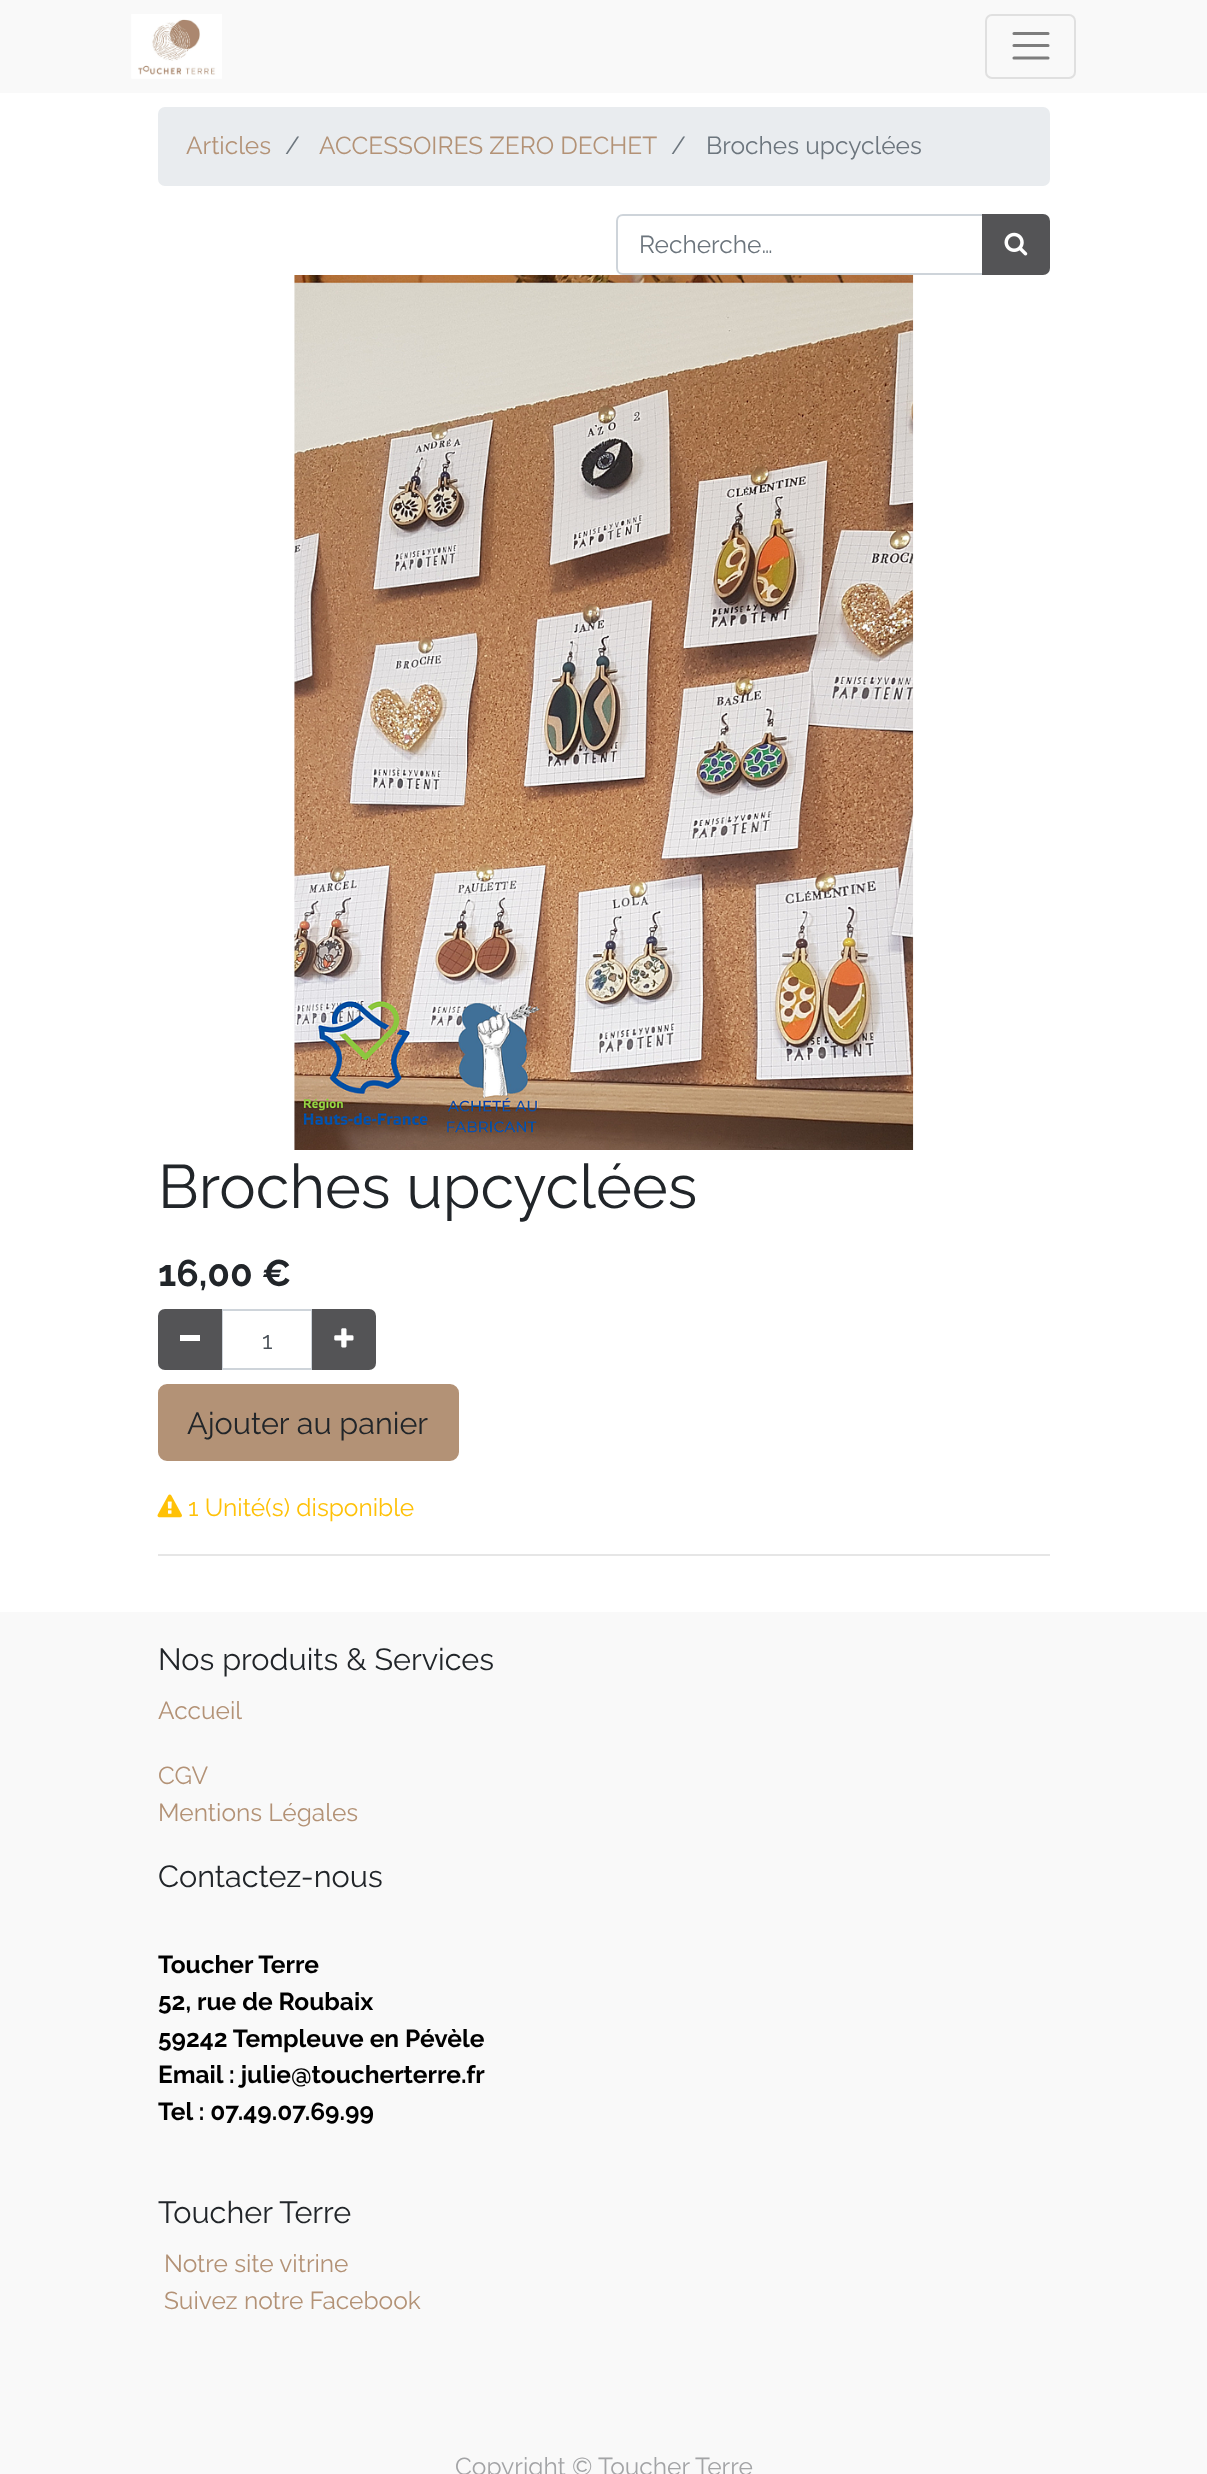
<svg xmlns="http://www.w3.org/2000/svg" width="1207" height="2474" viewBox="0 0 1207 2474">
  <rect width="100%" height="100%" fill="rgb(255,255,255)"/>
  <rect x="0" y="0" width="1207" height="93" fill="rgb(249,249,249)"/>
  <image x="131" y="14" width="91" height="65" href="pic1.png"/>
  <rect x="986" y="15" width="89" height="63" rx="6" fill="none" stroke="rgb(224,224,224)" stroke-width="2"/>
  <path d="M1014 33.5H1048M1014 45.5H1048M1014 58H1048" fill="none" stroke="rgb(125,125,125)" stroke-width="3.1" stroke-linecap="round"/>
  <rect x="158" y="107" width="892" height="79" rx="7" fill="rgb(233,236,239)"/>
  <text x="186" y="154" font-family="Raleway" font-size="24.5" fill="rgb(179,146,118)">Articles</text>
  <text x="285" y="154" font-family="Raleway" font-size="24.5" fill="rgb(108,117,125)">/</text>
  <text x="319" y="154" font-family="Raleway" font-size="24.5" fill="rgb(179,146,118)">ACCESSOIRES ZERO DECHET</text>
  <g font-family="Raleway" font-size="24.5" fill="rgb(108,117,125)">
    <text x="671" y="154">/</text>
    <text x="706" y="154">Broches upcyclées</text>
  </g>
  <path d="M623 215H983V274H623C619.5 274 617 271.5 617 268V221C617 217.5 619.5 215 623 215Z" fill="none" stroke="rgb(206,212,218)" stroke-width="2"/>
  <text x="639" y="253" font-family="Raleway" font-size="24.5" fill="rgb(108,117,125)">Recherche…</text>
  <path d="M983 215H1043C1046.5 215 1049 217.5 1049 221V268C1049 271.5 1046.5 274 1043 274H983Z" fill="rgb(84,84,86)" stroke="rgb(84,84,86)" stroke-width="2"/>
  <image x="1004" y="232" width="24" height="24" href="pic2.png"/>
  <image x="294" y="275" width="620" height="875" href="pic3.png"/>
  <text x="158" y="1208" font-family="Raleway" font-size="61.25" fill="rgb(33,37,41)">Broches upcyclées</text>
  <text x="158" y="1286" font-family="Raleway" font-size="37" font-weight="bold" fill="rgb(33,37,41)">16,00 €</text>
  <rect x="222" y="1310" width="90" height="59" fill="none" stroke="rgb(206,212,218)" stroke-width="2"/>
  <path d="M165 1310H221V1369H165C161.5 1369 159 1366.5 159 1363V1316C159 1312.5 161.5 1310 165 1310Z" fill="rgb(84,84,86)" stroke="rgb(84,84,86)" stroke-width="2"/>
  <rect x="180" y="1335" width="20" height="6" fill="rgb(255,255,255)"/>
  <text x="262" y="1349" font-family="Raleway" font-size="24.5" fill="rgb(73,80,87)">1</text>
  <path d="M313 1310H369C372.5 1310 375 1312.5 375 1316V1363C375 1366.5 372.5 1369 369 1369H313Z" fill="rgb(84,84,86)" stroke="rgb(84,84,86)" stroke-width="2"/>
  <image x="334" y="1328" width="20" height="20" href="pic4.png"/>
  <rect x="159" y="1385" width="299" height="75" rx="8" fill="rgb(179,146,118)" stroke="rgb(179,146,118)" stroke-width="2"/>
  <text x="187" y="1434" font-family="Raleway" font-size="30.6" fill="rgb(33,37,41)">Ajouter au panier</text>
  <image x="157" y="1494" width="25" height="24" href="pic5.png"/>
  <text x="188" y="1516" font-family="Raleway" font-size="24.5" fill="rgb(255,193,7)">1 Unité(s) disponible</text>
  <rect x="158" y="1554" width="892" height="2" fill="rgb(230,230,230)"/>
  <rect x="0" y="1612" width="1207" height="862" fill="rgb(249,249,249)"/>
  <text x="158" y="1670" font-family="Raleway" font-size="30.6" fill="rgb(33,37,41)">Nos produits &amp; Services</text>
  <g font-family="Raleway" font-size="24.5" fill="rgb(179,146,118)">
    <text x="158" y="1719">Accueil</text>
    <text>
      <tspan x="158" y="1784">CGV</tspan>
      <tspan x="158" y="1821">Mentions Légales</tspan>
    </text>
  </g>
  <text x="158" y="1887" font-family="Raleway" font-size="30.6" fill="rgb(33,37,41)">Contactez-nous</text>
  <g font-family="Raleway" font-size="24.5" font-weight="bold" fill="rgb(0,0,0)">
    <text>
      <tspan x="158" y="1973">Toucher Terre</tspan>
      <tspan x="158" y="2010">52, rue de Roubaix</tspan>
      <tspan x="158" y="2047">59242 Templeuve en Pévèle</tspan>
      <tspan x="158" y="2083">Email : julie@toucherterre.fr</tspan>
      <tspan x="158" y="2120">Tel : 07.49.07.69.99</tspan>
    </text>
  </g>
  <text x="158" y="2223" font-family="Raleway" font-size="30.6" fill="rgb(33,37,41)">Toucher Terre</text>
  <g font-family="Raleway" font-size="24.5" fill="rgb(179,146,118)">
    <text>
      <tspan x="164" y="2272">Notre site vitrine</tspan>
      <tspan x="164" y="2309">Suivez notre Facebook</tspan>
    </text>
  </g>
  <g font-family="Raleway" font-size="24.5" fill="rgb(163,164,166)">
    <text x="455" y="2475">Copyright ©</text>
    <text x="598" y="2475">Toucher Terre</text>
  </g>
</svg>
